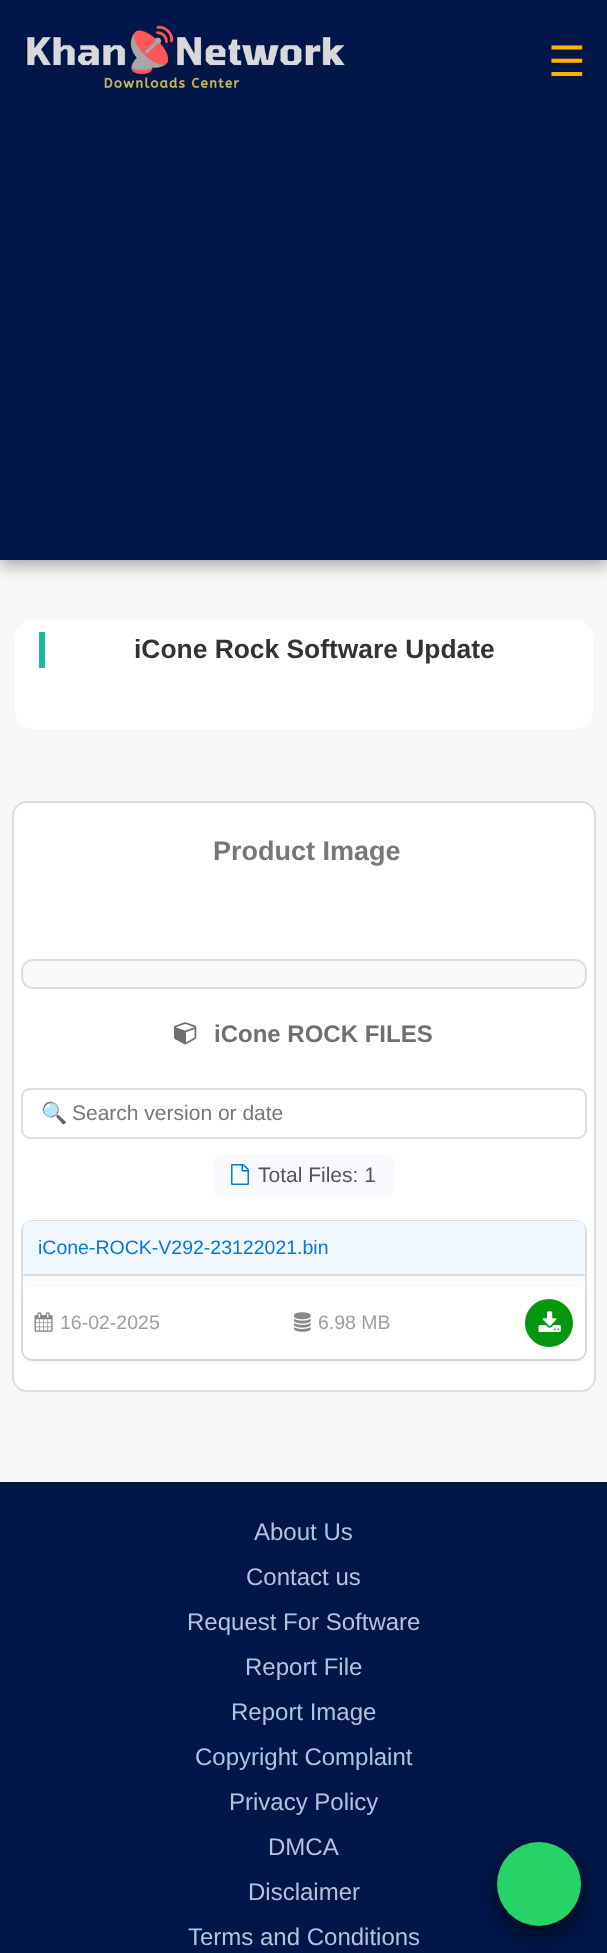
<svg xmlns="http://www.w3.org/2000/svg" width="607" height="1953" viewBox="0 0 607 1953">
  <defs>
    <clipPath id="clip1"><rect x="41" y="1101" width="526" height="24"/></clipPath>
  </defs>
  <rect width="100%" height="100%" fill="rgb(247,247,247)"/>
  <rect x="0" y="6" width="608" height="560" fill="rgba(0,0,0,0.3)" filter="blur(7.5px)"/>
  <rect x="0" y="0" width="607" height="560" fill="rgb(1,23,73)"/>
  <image x="26" y="25" width="319" height="64" href="pic1.png"/>
  <text x="548" y="76" font-family="DejaVu Sans" font-size="42" fill="rgb(255,179,0)">☰</text>
  <rect x="15" y="620" width="578" height="109" rx="18" fill="rgb(255,255,255)"/>
  <rect x="39" y="632" width="6" height="36" fill="rgb(26,188,156)"/>
  <text x="134" y="658" font-family="Liberation Sans" font-size="26.4" font-weight="bold" fill="rgb(51,51,51)">iCone Rock Software Update</text>
  <rect x="13" y="802" width="582" height="589" rx="14" fill="rgb(255,255,255)" stroke="rgb(221,221,221)" stroke-width="2"/>
  <text x="213" y="860" font-family="Liberation Sans" font-size="27" font-weight="bold" fill="rgb(119,119,119)">Product Image</text>
  <rect x="22" y="960" width="564" height="28" rx="11" fill="rgb(249,249,249)" stroke="rgb(221,221,221)" stroke-width="2"/>
  <image x="174" y="1022" width="23" height="23" href="pic2.png"/>
  <text x="214" y="1042" font-family="Liberation Sans" font-size="24" font-weight="bold" fill="rgb(111,111,111)">iCone ROCK FILES</text>
  <rect x="22" y="1089" width="564" height="49" rx="8" fill="none" stroke="rgb(221,221,221)" stroke-width="2"/>
  <g clip-path="url(#clip1)">
    <text x="41" y="1120" font-family="Noto Color Emoji" font-size="21" fill="rgb(119,119,119)">🔍</text>
  </g>
  <text x="72" y="1120" font-family="Liberation Sans" font-size="21" fill="rgb(119,119,119)">Search version or date</text>
  <rect x="213" y="1154" width="182" height="42" rx="9" fill="rgb(247,249,252)"/>
  <image x="231" y="1164" width="18" height="21" href="pic3.png"/>
  <text x="258" y="1182" font-family="Liberation Sans" font-size="21" fill="rgb(85,85,85)">Total Files: 1</text>
  <rect x="22" y="1221" width="564" height="139" rx="11" fill="rgb(250,250,250)" stroke="rgb(221,221,221)" stroke-width="2"/>
  <path d="M32 1221H576C581 1221 585 1225 585 1230V1275H23V1230C23 1225 27 1221 32 1221Z" fill="rgb(240,247,255)"/>
  <rect x="23" y="1274" width="562" height="2" fill="rgb(221,221,221)"/>
  <text x="38" y="1254" font-family="Liberation Sans" font-size="19.5" fill="rgb(10,118,211)">iCone-ROCK-V292-23122021.bin</text>
  <rect x="23" y="1290" width="562" height="72" rx="9" fill="rgba(0,0,0,0.05)" filter="blur(3px)"/>
  <path d="M23 1287H585V1350C585 1355 581 1359 576 1359H32C27 1359 23 1355 23 1350Z" fill="rgb(255,255,255)"/>
  <image x="34" y="1312" width="19" height="20" href="pic4.png"/>
  <text x="60" y="1329" font-family="Liberation Sans" font-size="19.5" fill="rgb(159,159,159)">16-02-2025</text>
  <image x="294" y="1312" width="17" height="20" href="pic5.png"/>
  <text x="318" y="1329" font-family="Liberation Sans" font-size="19.5" fill="rgb(159,159,159)">6.98 MB</text>
  <circle cx="549" cy="1323" r="24" fill="rgb(4,151,15)"/>
  <image x="538" y="1311" width="23" height="21" href="pic6.png"/>
  <rect x="0" y="1482" width="607" height="471" fill="rgb(1,23,73)"/>
  <g font-family="Liberation Sans" font-size="24" fill="rgb(176,196,222)">
    <text x="254" y="1540">About Us</text>
    <text x="246" y="1585">Contact us</text>
    <text x="187" y="1630">Request For Software</text>
    <text x="245" y="1675">Report File</text>
    <text x="231" y="1720">Report Image</text>
    <text x="195" y="1765">Copyright Complaint</text>
    <text x="229" y="1810">Privacy Policy</text>
    <text x="268" y="1855">DMCA</text>
    <text x="248" y="1900">Disclaimer</text>
    <text x="188" y="1945">Terms and Conditions</text>
  </g>
  <rect x="497" y="1851" width="84" height="84" rx="42" fill="rgba(0,0,0,0.6)" filter="blur(12px)"/>
  <circle cx="539" cy="1884" r="42" fill="rgb(37,211,102)"/>
</svg>
